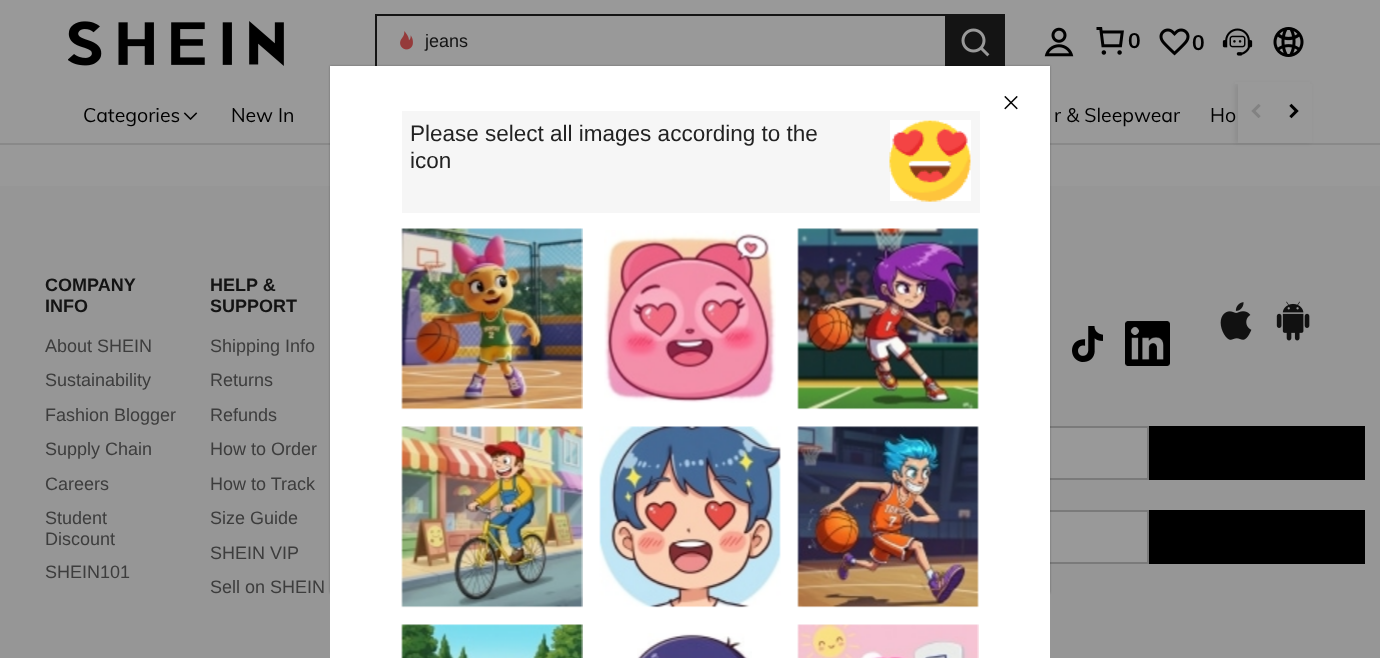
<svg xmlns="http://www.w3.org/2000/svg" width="1380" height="658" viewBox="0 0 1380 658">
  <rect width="100%" height="100%" fill="rgb(153,153,153)"/>
  <rect x="0" y="143" width="1380" height="2" fill="rgb(137,137,137)"/>
  <rect x="1235" y="84" width="75" height="59" fill="rgba(0,0,0,0.08)" filter="blur(2px)"/>
  <rect x="1235" y="82" width="75" height="2" fill="rgb(153,153,153)"/>
  <image x="68" y="21" width="216" height="45" href="pic1.png"/>
  <rect x="375" y="14" width="570" height="2" fill="rgb(20,20,20)"/>
  <rect x="375" y="14" width="2" height="57" fill="rgb(20,20,20)"/>
  <image x="400" y="31" width="13" height="19" href="pic2.png"/>
  <text x="425" y="47" font-family="Liberation Sans" font-size="18" fill="rgb(20,20,20)">jeans</text>
  <rect x="945" y="14" width="60" height="52" fill="rgb(20,20,20)"/>
  <image x="961" y="28" width="29" height="29" href="pic3.png"/>
  <image x="1044" y="27" width="30" height="30" href="pic4.png"/>
  <image x="1096" y="27" width="28" height="28" href="pic5.png"/>
  <text x="1128" y="48" font-family="Muli" font-size="21" font-weight="bold" fill="rgb(0,0,0)">0</text>
  <image x="1159" y="28" width="31" height="28" href="pic6.png"/>
  <text x="1192" y="50" font-family="Muli" font-size="21" font-weight="bold" fill="rgb(0,0,0)">0</text>
  <image x="1222" y="28" width="31" height="28" href="pic7.png"/>
  <image x="1273" y="27" width="31" height="30" href="pic8.png"/>
  <text x="83" y="122" font-family="Muli" font-size="19.5" fill="rgb(0,0,0)">Categories</text>
  <image x="183" y="112" width="15" height="8" href="pic9.png"/>
  <g font-family="Muli" font-size="19.5" fill="rgb(0,0,0)">
    <text x="231" y="122">New In</text>
    <text x="1054" y="122">r &amp; Sleepwear</text>
    <text x="1210" y="122">Ho</text>
  </g>
  <rect x="1238" y="84" width="74" height="59" fill="rgb(153,153,153)"/>
  <image x="1251" y="104" width="10" height="14" href="pic10.png"/>
  <image x="1289" y="103" width="10" height="16" href="pic11.png"/>
  <rect x="0" y="186" width="1380" height="472" fill="rgb(150,150,150)"/>
  <g font-family="Liberation Sans" font-size="18" font-weight="bold" fill="rgb(20,20,20)">
    <text>
      <tspan x="45" y="291">COMPANY</tspan>
      <tspan x="45" y="312">INFO</tspan>
    </text>
  </g>
  <g font-family="Liberation Sans" font-size="18" fill="rgb(61,61,61)">
    <text>
      <tspan x="45" y="352">About SHEIN</tspan>
      <tspan x="45" y="386">Sustainability</tspan>
      <tspan x="45" y="421">Fashion Blogger</tspan>
      <tspan x="45" y="455">Supply Chain</tspan>
      <tspan x="45" y="490">Careers</tspan>
      <tspan x="45" y="524">Student</tspan>
      <tspan x="45" y="545">Discount</tspan>
      <tspan x="45" y="578">SHEIN101</tspan>
    </text>
  </g>
  <g font-family="Liberation Sans" font-size="18" font-weight="bold" fill="rgb(20,20,20)">
    <text>
      <tspan x="210" y="291">HELP &amp;</tspan>
      <tspan x="210" y="312">SUPPORT</tspan>
    </text>
  </g>
  <g font-family="Liberation Sans" font-size="18" fill="rgb(61,61,61)">
    <text>
      <tspan x="210" y="352">Shipping Info</tspan>
      <tspan x="210" y="386">Returns</tspan>
      <tspan x="210" y="421">Refunds</tspan>
      <tspan x="210" y="455">How to Order</tspan>
      <tspan x="210" y="490">How to Track</tspan>
      <tspan x="210" y="524">Size Guide</tspan>
      <tspan x="210" y="559">SHEIN VIP</tspan>
      <tspan x="210" y="593">Sell on SHEIN</tspan>
    </text>
  </g>
  <image x="1072" y="326" width="31" height="36" href="pic12.png"/>
  <image x="1125" y="321" width="45" height="45" href="pic13.png"/>
  <image x="1220" y="302" width="32" height="38" href="pic14.png"/>
  <image x="1276" y="301" width="34" height="40" href="pic15.png"/>
  <rect x="1050" y="428" width="97" height="50" fill="rgb(153,153,153)"/>
  <rect x="706" y="427" width="442" height="52" fill="none" stroke="rgb(122,122,122)" stroke-width="2"/>
  <rect x="1149" y="426" width="216" height="54" fill="rgb(0,0,0)"/>
  <rect x="1050" y="512" width="97" height="50" fill="rgb(153,153,153)"/>
  <rect x="826" y="511" width="322" height="52" fill="none" stroke="rgb(122,122,122)" stroke-width="2"/>
  <rect x="1149" y="510" width="216" height="54" fill="rgb(0,0,0)"/>
  <rect x="330" y="66" width="720" height="527" fill="rgba(0,0,0,0.3)" filter="blur(1px)"/>
  <rect x="330" y="66" width="720" height="592" fill="rgb(255,255,255)"/>
  <image x="1004" y="96" width="14" height="14" href="pic16.png"/>
  <rect x="402" y="111" width="578" height="102" fill="rgb(246,246,246)"/>
  <g font-family="Liberation Sans" font-size="22.5" fill="rgb(34,34,34)">
    <text>
      <tspan x="410" y="141">Please select all images according to the</tspan>
      <tspan x="410" y="168">icon</tspan>
    </text>
  </g>
  <rect x="890" y="120" width="81" height="81" fill="rgb(255,255,255)"/>
  <image x="889" y="120" width="82" height="82" href="pic17.png"/>
  <image x="401" y="228" width="182" height="182" href="pic18.png"/>
  <image x="604" y="230" width="172" height="173" href="pic19.png"/>
  <image x="797" y="228" width="182" height="182" href="pic20.png"/>
  <image x="401" y="426" width="182" height="182" href="pic21.png"/>
  <image x="599" y="426" width="182" height="182" href="pic22.png"/>
  <image x="797" y="426" width="182" height="182" href="pic23.png"/>
  <image x="401" y="624" width="182" height="34" href="pic24.png"/>
  <image x="637" y="633" width="115" height="25" href="pic25.png"/>
  <image x="797" y="624" width="182" height="34" href="pic26.png"/>
</svg>
